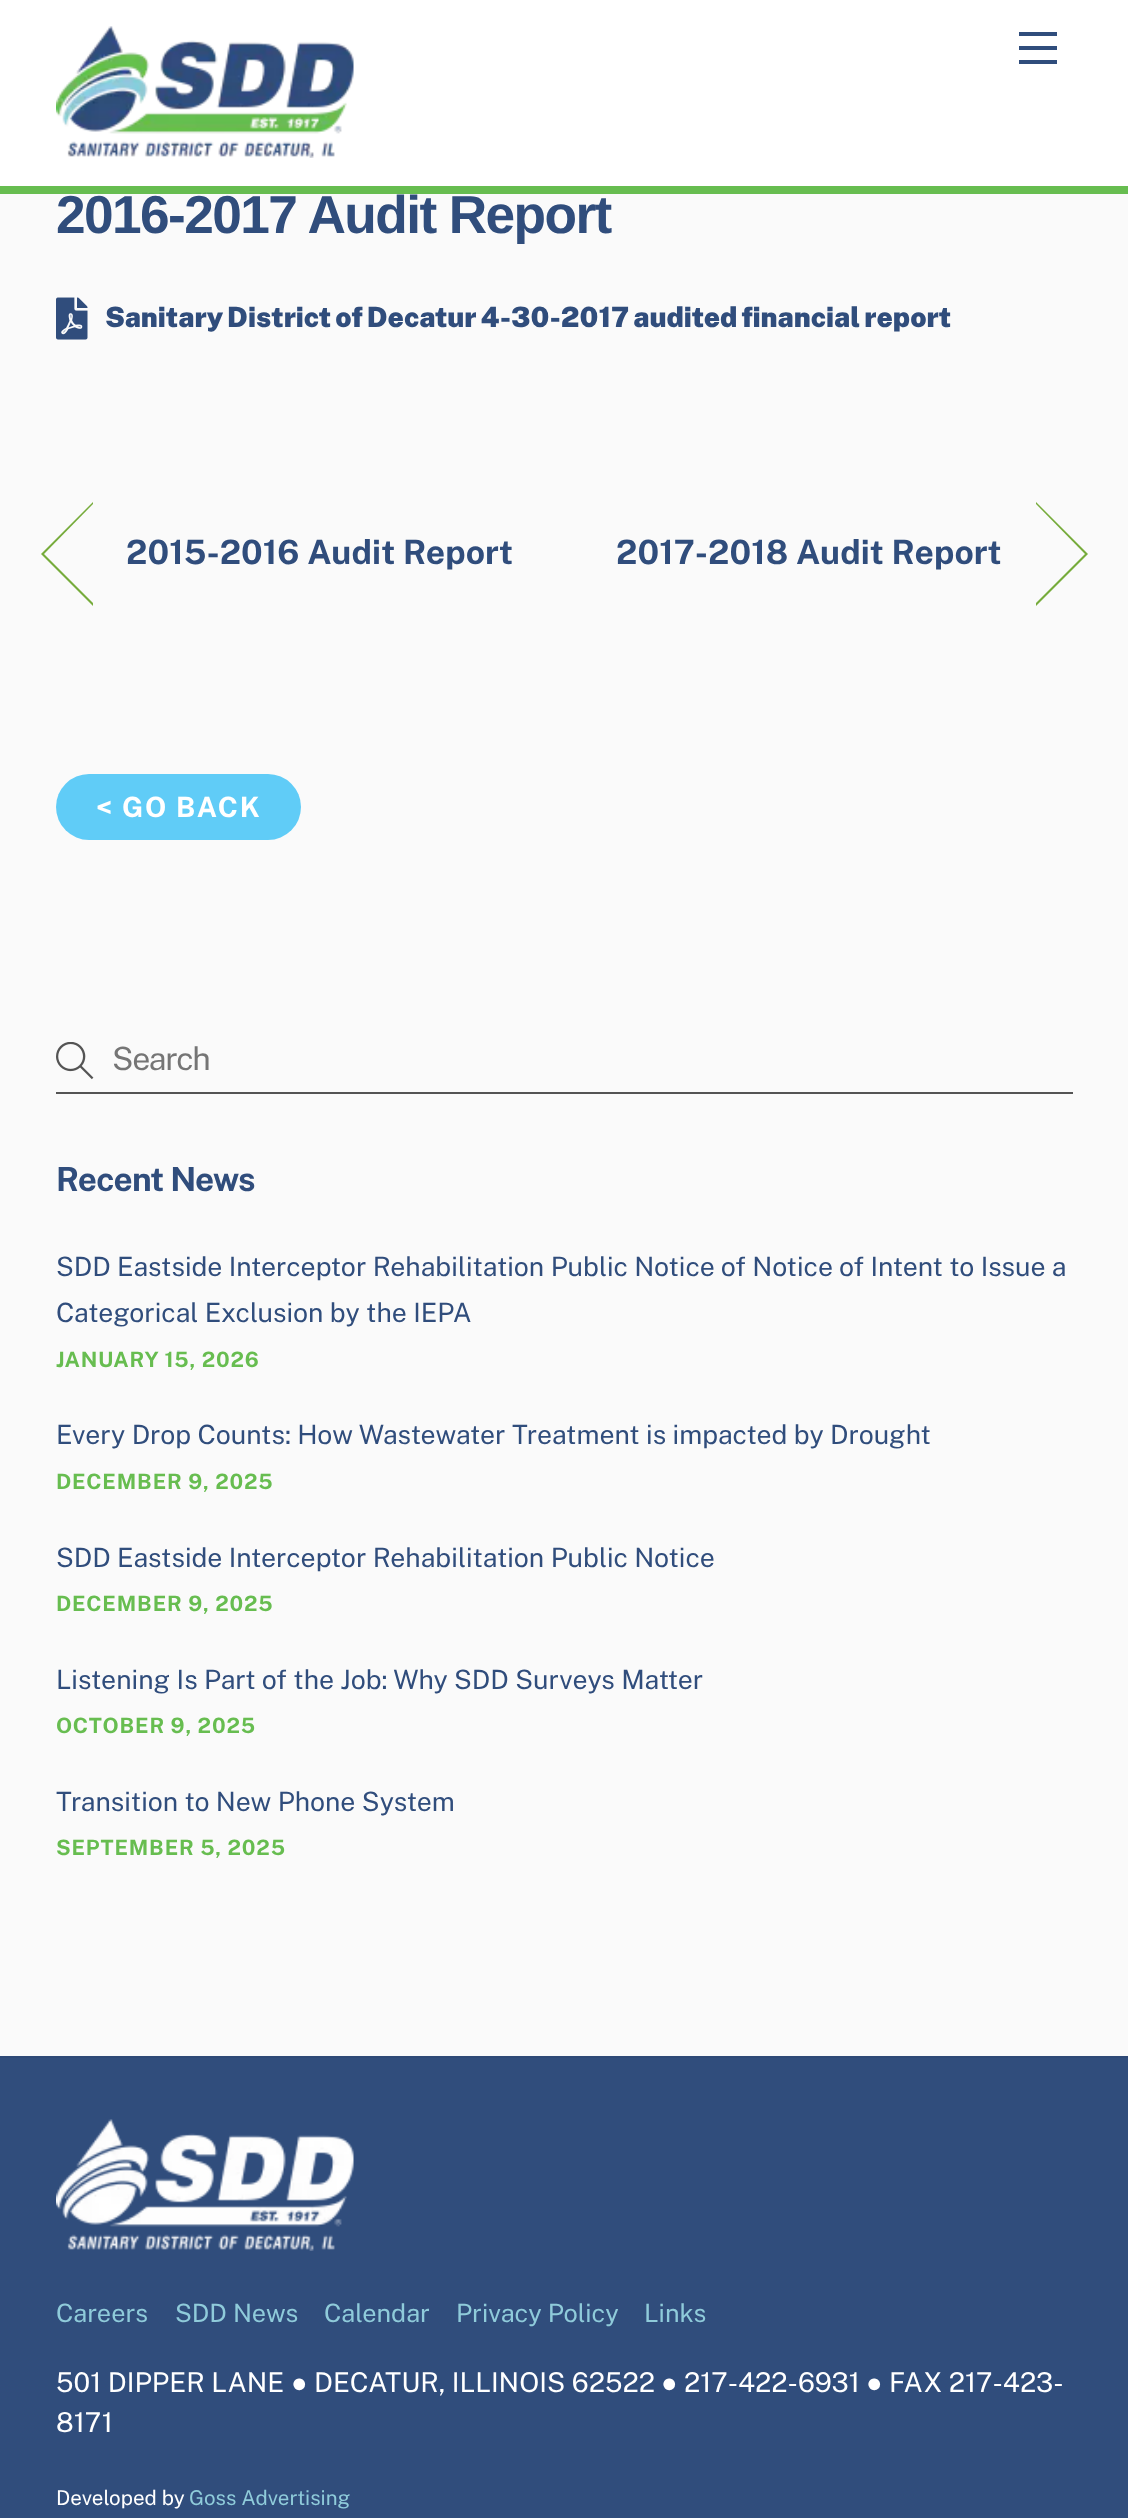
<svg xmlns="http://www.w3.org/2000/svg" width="1128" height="2518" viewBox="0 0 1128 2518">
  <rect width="100%" height="100%" fill="rgb(250,250,250)"/>
  <rect x="0" y="0" width="1128" height="186" fill="rgb(255,255,255)"/>
  <rect x="0" y="186" width="1128" height="8" fill="rgb(103,189,80)"/>
  <image x="56" y="26" width="298" height="132" href="pic1.png"/>
  <rect x="1019" y="60" width="38" height="4" fill="rgb(48,77,124)"/>
  <rect x="1019" y="32" width="38" height="4" fill="rgb(48,77,124)"/>
  <rect x="1019" y="46" width="38" height="4" fill="rgb(48,77,124)"/>
  <text x="56" y="233" font-family="Liberation Sans" font-size="53.25" font-weight="bold" letter-spacing="-1.6" fill="rgb(48,77,124)">2016-2017 Audit Report</text>
  <image x="56" y="297" width="32" height="43" href="pic2.png"/>
  <text x="105" y="327" word-spacing="-1.75" font-family="Public Sans" font-size="28" font-weight="900" fill="rgb(48,77,124)">Sanitary District of Decatur 4-30-2017 audited financial report</text>
  <path d="M93 606L41 554H44L93 603Z" fill="rgb(118,171,59)"/>
  <path d="M41 554L93 502V504L44 554Z" fill="rgb(118,171,59)"/>
  <g font-family="Public Sans" font-size="33.6" font-weight="bold" letter-spacing="0.1" fill="rgb(48,77,124)">
    <text x="126" y="564">2015-2016 Audit Report</text>
    <text x="616" y="564">2017-2018 Audit Report</text>
  </g>
  <path d="M1036 502L1088 554H1085L1036 504Z" fill="rgb(118,171,59)"/>
  <path d="M1088 554L1036 606V603L1085 554Z" fill="rgb(118,171,59)"/>
  <rect x="56" y="774" width="245" height="66" rx="33" fill="rgb(96,204,247)"/>
  <text x="96" y="817" font-family="Public Sans" font-size="28" font-weight="bold" letter-spacing="1.75" fill="rgb(255,255,255)">&lt; GO BACK</text>
  <rect x="56" y="1092" width="1017" height="2" fill="rgb(84,84,84)"/>
  <image x="56" y="1042" width="38" height="38" href="pic3.png"/>
  <text x="112" y="1070" font-family="Public Sans" font-size="32" letter-spacing="-1.25" fill="rgb(117,117,117)">Search</text>
  <text x="56" y="1191" font-family="Public Sans" font-size="33.25" font-weight="bold" letter-spacing="-0.75" fill="rgb(48,77,124)">Recent News</text>
  <g font-family="Public Sans" font-size="26.6" fill="rgb(48,77,124)">
    <text>
      <tspan x="56" y="1276">SDD Eastside Interceptor Rehabilitation Public Notice of Notice of Intent to Issue a</tspan>
      <tspan x="56" y="1322">Categorical Exclusion by the IEPA</tspan>
    </text>
  </g>
  <text x="56" y="1367" font-family="Public Sans" font-size="21.25" font-weight="bold" letter-spacing="0.8" fill="rgb(103,189,80)">JANUARY 15, 2026</text>
  <text x="56" y="1444" font-family="Public Sans" font-size="26.6" fill="rgb(48,77,124)">Every Drop Counts: How Wastewater Treatment is impacted by Drought</text>
  <text x="56" y="1489" font-family="Public Sans" font-size="21.25" font-weight="bold" letter-spacing="0.8" fill="rgb(103,189,80)">DECEMBER 9, 2025</text>
  <text x="56" y="1567" font-family="Public Sans" font-size="26.6" fill="rgb(48,77,124)">SDD Eastside Interceptor Rehabilitation Public Notice</text>
  <text x="56" y="1611" font-family="Public Sans" font-size="21.25" font-weight="bold" letter-spacing="0.8" fill="rgb(103,189,80)">DECEMBER 9, 2025</text>
  <text x="56" y="1689" font-family="Public Sans" font-size="26.6" fill="rgb(48,77,124)">Listening Is Part of the Job: Why SDD Surveys Matter</text>
  <text x="56" y="1733" font-family="Public Sans" font-size="21.25" font-weight="bold" letter-spacing="0.8" fill="rgb(103,189,80)">OCTOBER 9, 2025</text>
  <text x="56" y="1811" font-family="Public Sans" font-size="26.6" fill="rgb(48,77,124)">Transition to New Phone System</text>
  <text x="56" y="1855" font-family="Public Sans" font-size="21.25" font-weight="bold" letter-spacing="0.8" fill="rgb(103,189,80)">SEPTEMBER 5, 2025</text>
  <rect x="0" y="2058" width="1128" height="460" fill="rgb(48,77,124)"/>
  <rect x="0" y="2056" width="1128" height="2" fill="rgb(46,73,118)"/>
  <image x="56" y="2119" width="298" height="132" href="pic4.png"/>
  <g font-family="Public Sans" font-size="25.25" fill="rgb(143,203,218)">
    <text x="56" y="2322">Careers</text>
    <text x="175" y="2322">SDD News</text>
    <text x="324" y="2322">Calendar</text>
    <text x="456" y="2322">Privacy Policy</text>
    <text x="644" y="2322">Links</text>
  </g>
  <text x="56" y="2392" font-family="Public Sans" font-size="27.25" fill="rgb(255,255,255)">501 DIPPER LANE</text>
  <text x="291" y="2392" font-family="Liberation Sans" font-size="27.25" fill="rgb(255,255,255)">●</text>
  <text x="314" y="2392" font-family="Public Sans" font-size="27.25" fill="rgb(255,255,255)">DECATUR, ILLINOIS 62522</text>
  <text x="661" y="2392" font-family="Liberation Sans" font-size="27.25" fill="rgb(255,255,255)">●</text>
  <text x="684" y="2392" font-family="Public Sans" font-size="27.25" fill="rgb(255,255,255)">217-422-6931</text>
  <text x="866" y="2392" font-family="Liberation Sans" font-size="27.25" fill="rgb(255,255,255)">●</text>
  <g font-family="Public Sans" font-size="27.25" fill="rgb(255,255,255)">
    <text x="889" y="2392">FAX 217-423-</text>
    <text x="56" y="2432">8171</text>
  </g>
  <text x="56" y="2505" font-family="Public Sans" font-size="20.5" fill="rgb(255,255,255)">Developed by</text>
  <text x="189" y="2505" font-family="Public Sans" font-size="20.5" fill="rgb(143,203,218)">Goss Advertising</text>
</svg>
